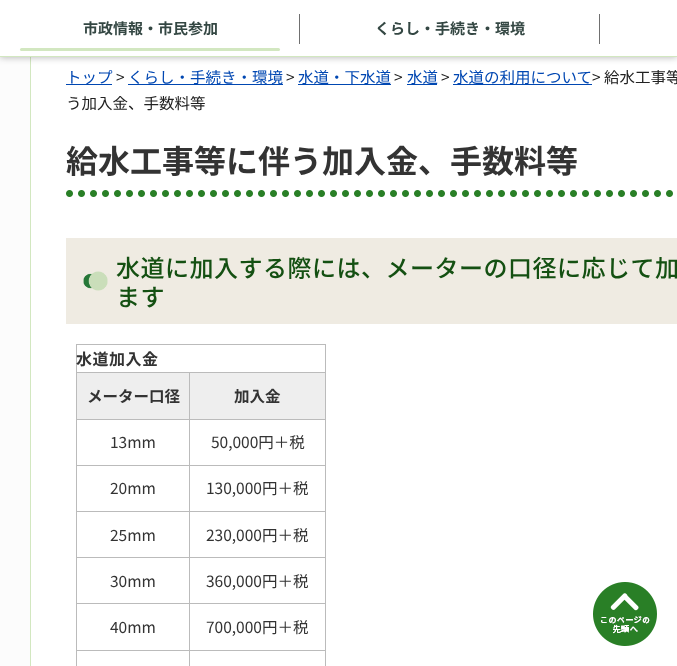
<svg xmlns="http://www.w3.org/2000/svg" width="677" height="666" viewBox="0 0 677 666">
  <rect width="100%" height="100%" fill="rgb(252,252,252)"/>
  <rect x="31" y="57" width="646" height="609" fill="rgb(255,255,255)"/>
  <rect x="30.5" y="43.5" width="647" height="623" fill="none" stroke="rgb(210,231,192)"/>
  <rect x="0" y="1" width="677" height="57" fill="rgba(32,33,36,0.28)" filter="blur(3px)"/>
  <rect x="0" y="0" width="677" height="56" fill="rgb(255,255,255)"/>
  <rect x="0" y="56" width="677" height="1" fill="rgb(210,231,192)"/>
  <text x="83" y="34" font-family="Noto Sans JP" font-size="15" font-weight="bold" fill="rgb(52,71,67)">市政情報・市民参加</text>
  <rect x="299" y="14" width="1" height="30" fill="rgb(112,112,112)"/>
  <rect x="20" y="48" width="260" height="3" rx="1.5" fill="rgb(210,231,192)"/>
  <text x="375" y="34" font-family="Noto Sans JP" font-size="15" font-weight="bold" fill="rgb(52,71,67)">くらし・手続き・環境</text>
  <rect x="599" y="14" width="1" height="30" fill="rgb(112,112,112)"/>
  <rect x="66" y="84" width="46" height="1" fill="rgb(0,71,178)"/>
  <text x="66" y="83" font-family="Noto Sans JP" font-size="15.5" fill="rgb(0,71,178)">トップ</text>
  <text x="116" y="83" font-family="Noto Sans JP" font-size="15.5" fill="rgb(34,34,34)">&gt;</text>
  <rect x="128" y="84" width="155" height="1" fill="rgb(0,71,178)"/>
  <text x="128" y="83" font-family="Noto Sans JP" font-size="15.5" fill="rgb(0,71,178)">くらし・手続き・環境</text>
  <text x="286" y="83" font-family="Noto Sans JP" font-size="15.5" fill="rgb(34,34,34)">&gt;</text>
  <rect x="298" y="84" width="93" height="1" fill="rgb(0,71,178)"/>
  <text x="298" y="83" font-family="Noto Sans JP" font-size="15.5" fill="rgb(0,71,178)">水道・下水道</text>
  <text x="394" y="83" font-family="Noto Sans JP" font-size="15.5" fill="rgb(34,34,34)">&gt;</text>
  <rect x="407" y="84" width="30" height="1" fill="rgb(0,71,178)"/>
  <text x="407" y="83" font-family="Noto Sans JP" font-size="15.5" fill="rgb(0,71,178)">水道</text>
  <text x="441" y="83" font-family="Noto Sans JP" font-size="15.5" fill="rgb(34,34,34)">&gt;</text>
  <rect x="453" y="84" width="139" height="1" fill="rgb(0,71,178)"/>
  <text x="453" y="83" font-family="Noto Sans JP" font-size="15.5" fill="rgb(0,71,178)">水道の利用について</text>
  <g font-family="Noto Sans JP" font-size="15.5" fill="rgb(34,34,34)">
    <text x="592" y="83">&gt; 給水工事等</text>
    <text x="66" y="109">う加入金、手数料等</text>
  </g>
  <text x="66" y="173" font-family="Noto Sans JP" font-size="32" font-weight="bold" fill="rgb(51,51,51)">給水工事等に伴う加入金、手数料等</text>
  <image x="66" y="190" width="607" height="7" href="pic1.png"/>
  <rect x="66" y="238" width="611" height="86" fill="rgb(239,235,226)"/>
  <image x="83" y="271" width="25" height="20" href="pic2.png"/>
  <g font-family="Noto Sans JP" font-size="24" font-weight="500" letter-spacing="0.5" fill="rgb(20,80,18)">
    <text>
      <tspan x="116" y="277">水道に加入する際には、メーターの口径に応じて加</tspan>
      <tspan x="116" y="306">ます</tspan>
    </text>
  </g>
  <rect x="76" y="344" width="250" height="1" fill="rgb(187,187,187)"/>
  <rect x="325" y="344" width="1" height="322" fill="rgb(187,187,187)"/>
  <rect x="76" y="344" width="1" height="322" fill="rgb(187,187,187)"/>
  <text x="76" y="365" font-family="Noto Sans JP" font-size="16" font-weight="bold" letter-spacing="0.5" fill="rgb(51,51,51)">水道加入金</text>
  <rect x="77" y="373" width="112" height="46" fill="rgb(238,238,238)"/>
  <rect x="189" y="372" width="137" height="1" fill="rgb(187,187,187)"/>
  <rect x="189" y="419" width="137" height="1" fill="rgb(187,187,187)"/>
  <rect x="189" y="465" width="137" height="1" fill="rgb(187,187,187)"/>
  <rect x="189" y="511" width="137" height="1" fill="rgb(187,187,187)"/>
  <rect x="189" y="557" width="137" height="1" fill="rgb(187,187,187)"/>
  <rect x="189" y="603" width="137" height="1" fill="rgb(187,187,187)"/>
  <rect x="189" y="650" width="137" height="1" fill="rgb(187,187,187)"/>
  <rect x="189" y="650" width="1" height="16" fill="rgb(187,187,187)"/>
  <rect x="76" y="650" width="114" height="1" fill="rgb(187,187,187)"/>
  <rect x="189" y="603" width="1" height="48" fill="rgb(187,187,187)"/>
  <rect x="76" y="603" width="114" height="1" fill="rgb(187,187,187)"/>
  <rect x="189" y="557" width="1" height="47" fill="rgb(187,187,187)"/>
  <rect x="76" y="557" width="114" height="1" fill="rgb(187,187,187)"/>
  <rect x="189" y="511" width="1" height="47" fill="rgb(187,187,187)"/>
  <rect x="76" y="511" width="114" height="1" fill="rgb(187,187,187)"/>
  <rect x="189" y="465" width="1" height="47" fill="rgb(187,187,187)"/>
  <rect x="76" y="465" width="114" height="1" fill="rgb(187,187,187)"/>
  <rect x="189" y="419" width="1" height="47" fill="rgb(187,187,187)"/>
  <rect x="76" y="419" width="114" height="1" fill="rgb(187,187,187)"/>
  <rect x="189" y="372" width="1" height="48" fill="rgb(187,187,187)"/>
  <rect x="76" y="372" width="114" height="1" fill="rgb(187,187,187)"/>
  <text x="87" y="402" font-family="Noto Sans JP" font-size="15.5" font-weight="bold" fill="rgb(51,51,51)">メーター口径</text>
  <rect x="190" y="373" width="135" height="46" fill="rgb(238,238,238)"/>
  <text x="234" y="402" font-family="Noto Sans JP" font-size="15.5" font-weight="bold" fill="rgb(51,51,51)">加入金</text>
  <g font-family="Noto Sans JP" font-size="15.5" fill="rgb(51,51,51)">
    <text x="110" y="448">13mm</text>
    <text x="211" y="448">50,000円＋税</text>
    <text x="110" y="494">20mm</text>
    <text x="206" y="494">130,000円＋税</text>
    <text x="110" y="541">25mm</text>
    <text x="206" y="541">230,000円＋税</text>
    <text x="110" y="587">30mm</text>
    <text x="206" y="587">360,000円＋税</text>
    <text x="110" y="633">40mm</text>
    <text x="206" y="633">700,000円＋税</text>
  </g>
  <image x="593" y="582" width="64" height="64" href="pic3.png"/>
</svg>
